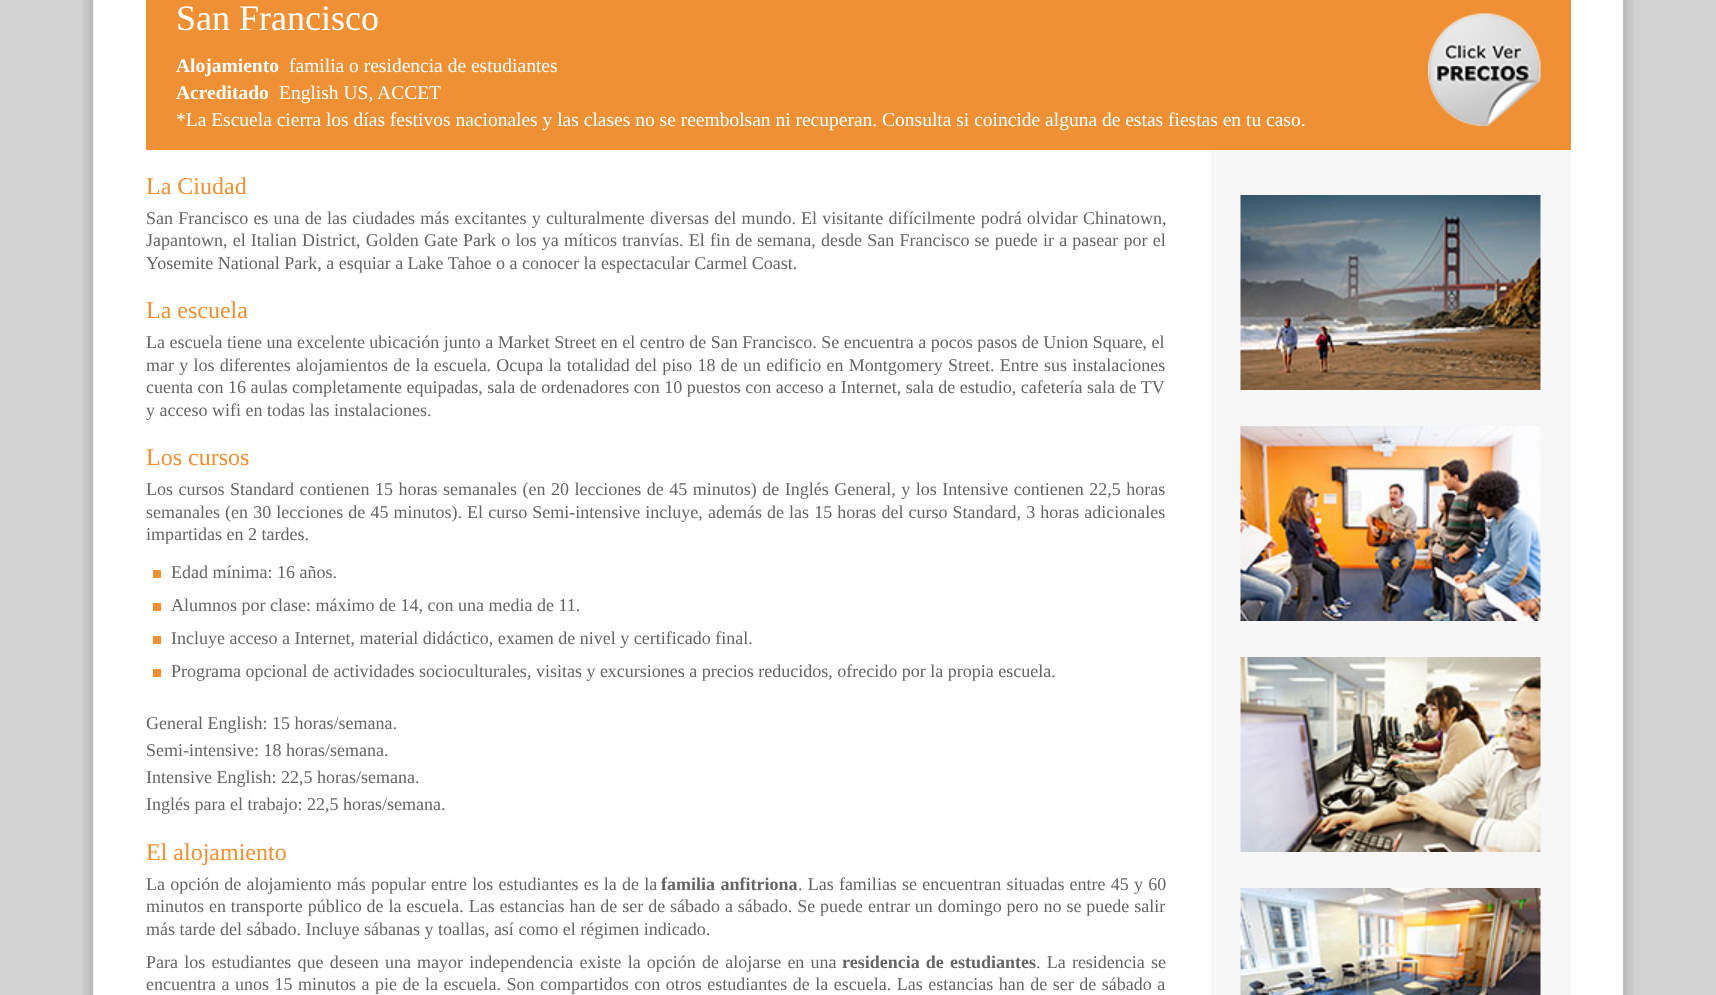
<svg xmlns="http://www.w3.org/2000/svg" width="1716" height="995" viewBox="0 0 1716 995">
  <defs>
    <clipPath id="clip1"><rect x="146" y="150" width="1425" height="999"/></clipPath>
  </defs>
  <rect width="100%" height="100%" fill="rgb(210,210,210)"/>
  <image x="82" y="0" width="1552" height="995" href="pic1.png"/>
  <rect x="146" y="0" width="1425" height="150" fill="rgb(239,144,52)"/>
  <text x="176" y="30" font-family="Liberation Serif" font-size="36" fill="rgb(255,255,255)">San Francisco</text>
  <text x="176" y="72" font-family="Liberation Serif" font-size="19.5" font-weight="bold" fill="rgb(255,255,255)">Alojamiento</text>
  <text x="289" y="72" font-family="Liberation Serif" font-size="19.5" fill="rgb(255,255,255)">familia o residencia de estudiantes</text>
  <text x="176" y="99" font-family="Liberation Serif" font-size="19.5" font-weight="bold" fill="rgb(255,255,255)">Acreditado</text>
  <g font-family="Liberation Serif" font-size="19.5" fill="rgb(255,255,255)">
    <text x="279" y="99">English US, ACCET</text>
    <text x="176" y="126">*La Escuela cierra los días festivos nacionales y las clases no se reembolsan ni recuperan. Consulta si coincide alguna de estas fiestas en tu caso.</text>
  </g>
  <image x="1428" y="13" width="113" height="113" href="pic2.png"/>
  <text x="146" y="194" font-family="Liberation Serif" font-size="24" fill="rgb(239,144,52)">La Ciudad</text>
  <g font-family="Liberation Serif" font-size="18" fill="rgb(101,101,101)">
    <text>
      <tspan x="146" y="224" word-spacing="0.7">San Francisco es una de las ciudades más excitantes y culturalmente diversas del mundo. El visitante difícilmente podrá olvidar Chinatown,</tspan>
      <tspan x="146" y="246" word-spacing="0.7">Japantown, el Italian District, Golden Gate Park o los ya míticos tranvías. El fin de semana, desde San Francisco se puede ir a pasear por el</tspan>
      <tspan x="146" y="269">Yosemite National Park, a esquiar a Lake Tahoe o a conocer la espectacular Carmel Coast.</tspan>
    </text>
  </g>
  <text x="146" y="318" font-family="Liberation Serif" font-size="24" fill="rgb(239,144,52)">La escuela</text>
  <g font-family="Liberation Serif" font-size="18" fill="rgb(101,101,101)">
    <text>
      <tspan x="146" y="348">La escuela tiene una excelente ubicación junto a Market Street en el centro de San Francisco. Se encuentra a pocos pasos de Union Square, el</tspan>
      <tspan x="146" y="371" word-spacing="0.75">mar y los diferentes alojamientos de la escuela. Ocupa la totalidad del piso 18 de un edificio en Montgomery Street. Entre sus instalaciones</tspan>
      <tspan x="146" y="393">cuenta con 16 aulas completamente equipadas, sala de ordenadores con 10 puestos con acceso a Internet, sala de estudio, cafetería sala de TV</tspan>
    </text>
  </g>
  <g clip-path="url(#clip1)">
    <text x="146" y="416" font-family="Liberation Serif" font-size="18" fill="rgb(101,101,101)">y acceso wifi en todas las instalaciones.</text>
  </g>
  <text x="146" y="465" font-family="Liberation Serif" font-size="24" fill="rgb(239,144,52)">Los cursos</text>
  <g font-family="Liberation Serif" font-size="18" fill="rgb(101,101,101)">
    <text>
      <tspan x="146" y="495" word-spacing="1">Los cursos Standard contienen 15 horas semanales (en 20 lecciones de 45 minutos) de Inglés General, y los Intensive contienen 22,5 horas</tspan>
      <tspan x="146" y="518" word-spacing="0.6">semanales (en 30 lecciones de 45 minutos). El curso Semi-intensive incluye, además de las 15 horas del curso Standard, 3 horas adicionales</tspan>
      <tspan x="146" y="540">impartidas en 2 tardes.</tspan>
    </text>
  </g>
  <rect x="153" y="570" width="8" height="8" fill="rgb(239,144,52)"/>
  <text x="171" y="578" font-family="Liberation Serif" font-size="18" fill="rgb(101,101,101)">Edad mínima: 16 años.</text>
  <rect x="153" y="603" width="8" height="8" fill="rgb(239,144,52)"/>
  <text x="171" y="611" font-family="Liberation Serif" font-size="18" fill="rgb(101,101,101)">Alumnos por clase: máximo de 14, con una media de 11.</text>
  <rect x="153" y="636" width="8" height="8" fill="rgb(239,144,52)"/>
  <text x="171" y="644" font-family="Liberation Serif" font-size="18" fill="rgb(101,101,101)">Incluye acceso a Internet, material didáctico, examen de nivel y certificado final.</text>
  <rect x="153" y="669" width="8" height="8" fill="rgb(239,144,52)"/>
  <g font-family="Liberation Serif" font-size="18" fill="rgb(101,101,101)">
    <text x="171" y="677">Programa opcional de actividades socioculturales, visitas y excursiones a precios reducidos, ofrecido por la propia escuela.</text>
    <text>
      <tspan x="146" y="729">General English: 15 horas/semana.</tspan>
      <tspan x="146" y="756">Semi-intensive: 18 horas/semana.</tspan>
      <tspan x="146" y="783">Intensive English: 22,5 horas/semana.</tspan>
      <tspan x="146" y="810">Inglés para el trabajo: 22,5 horas/semana.</tspan>
    </text>
  </g>
  <text x="146" y="860" font-family="Liberation Serif" font-size="24" fill="rgb(239,144,52)">El alojamiento</text>
  <text x="146" y="890" word-spacing="0.7" font-family="Liberation Serif" font-size="18" fill="rgb(101,101,101)">La opción de alojamiento más popular entre los estudiantes es la de la</text>
  <text x="661" y="890" word-spacing="1" font-family="Liberation Serif" font-size="18" font-weight="bold" fill="rgb(101,101,101)">familia anfitriona</text>
  <g font-family="Liberation Serif" font-size="18" fill="rgb(101,101,101)">
    <text x="798" y="890" word-spacing="0.7">. Las familias se encuentran situadas entre 45 y 60</text>
    <text>
      <tspan x="146" y="912" word-spacing="0.4">minutos en transporte público de la escuela. Las estancias han de ser de sábado a sábado. Se puede entrar un domingo pero no se puede salir</tspan>
      <tspan x="146" y="935">más tarde del sábado. Incluye sábanas y toallas, así como el régimen indicado.</tspan>
      <tspan x="146" y="968" word-spacing="1.7">Para los estudiantes que deseen una mayor independencia existe la opción de alojarse en una</tspan>
    </text>
  </g>
  <text x="842" y="968" word-spacing="1.7" font-family="Liberation Serif" font-size="18" font-weight="bold" fill="rgb(101,101,101)">residencia de estudiantes</text>
  <g font-family="Liberation Serif" font-size="18" fill="rgb(101,101,101)">
    <text x="1036" y="968" word-spacing="1.7">. La residencia se</text>
    <text x="146" y="990" word-spacing="1">encuentra a unos 15 minutos a pie de la escuela. Son compartidos con otros estudiantes de la escuela. Las estancias han de ser de sábado a</text>
  </g>
  <rect x="1211" y="150" width="360" height="845" fill="rgb(247,247,247)"/>
  <image x="1240" y="195" width="301" height="195" href="pic3.png"/>
  <image x="1240" y="426" width="301" height="195" href="pic4.png"/>
  <image x="1240" y="657" width="301" height="195" href="pic5.png"/>
  <image x="1240" y="888" width="301" height="107" href="pic6.png"/>
</svg>
